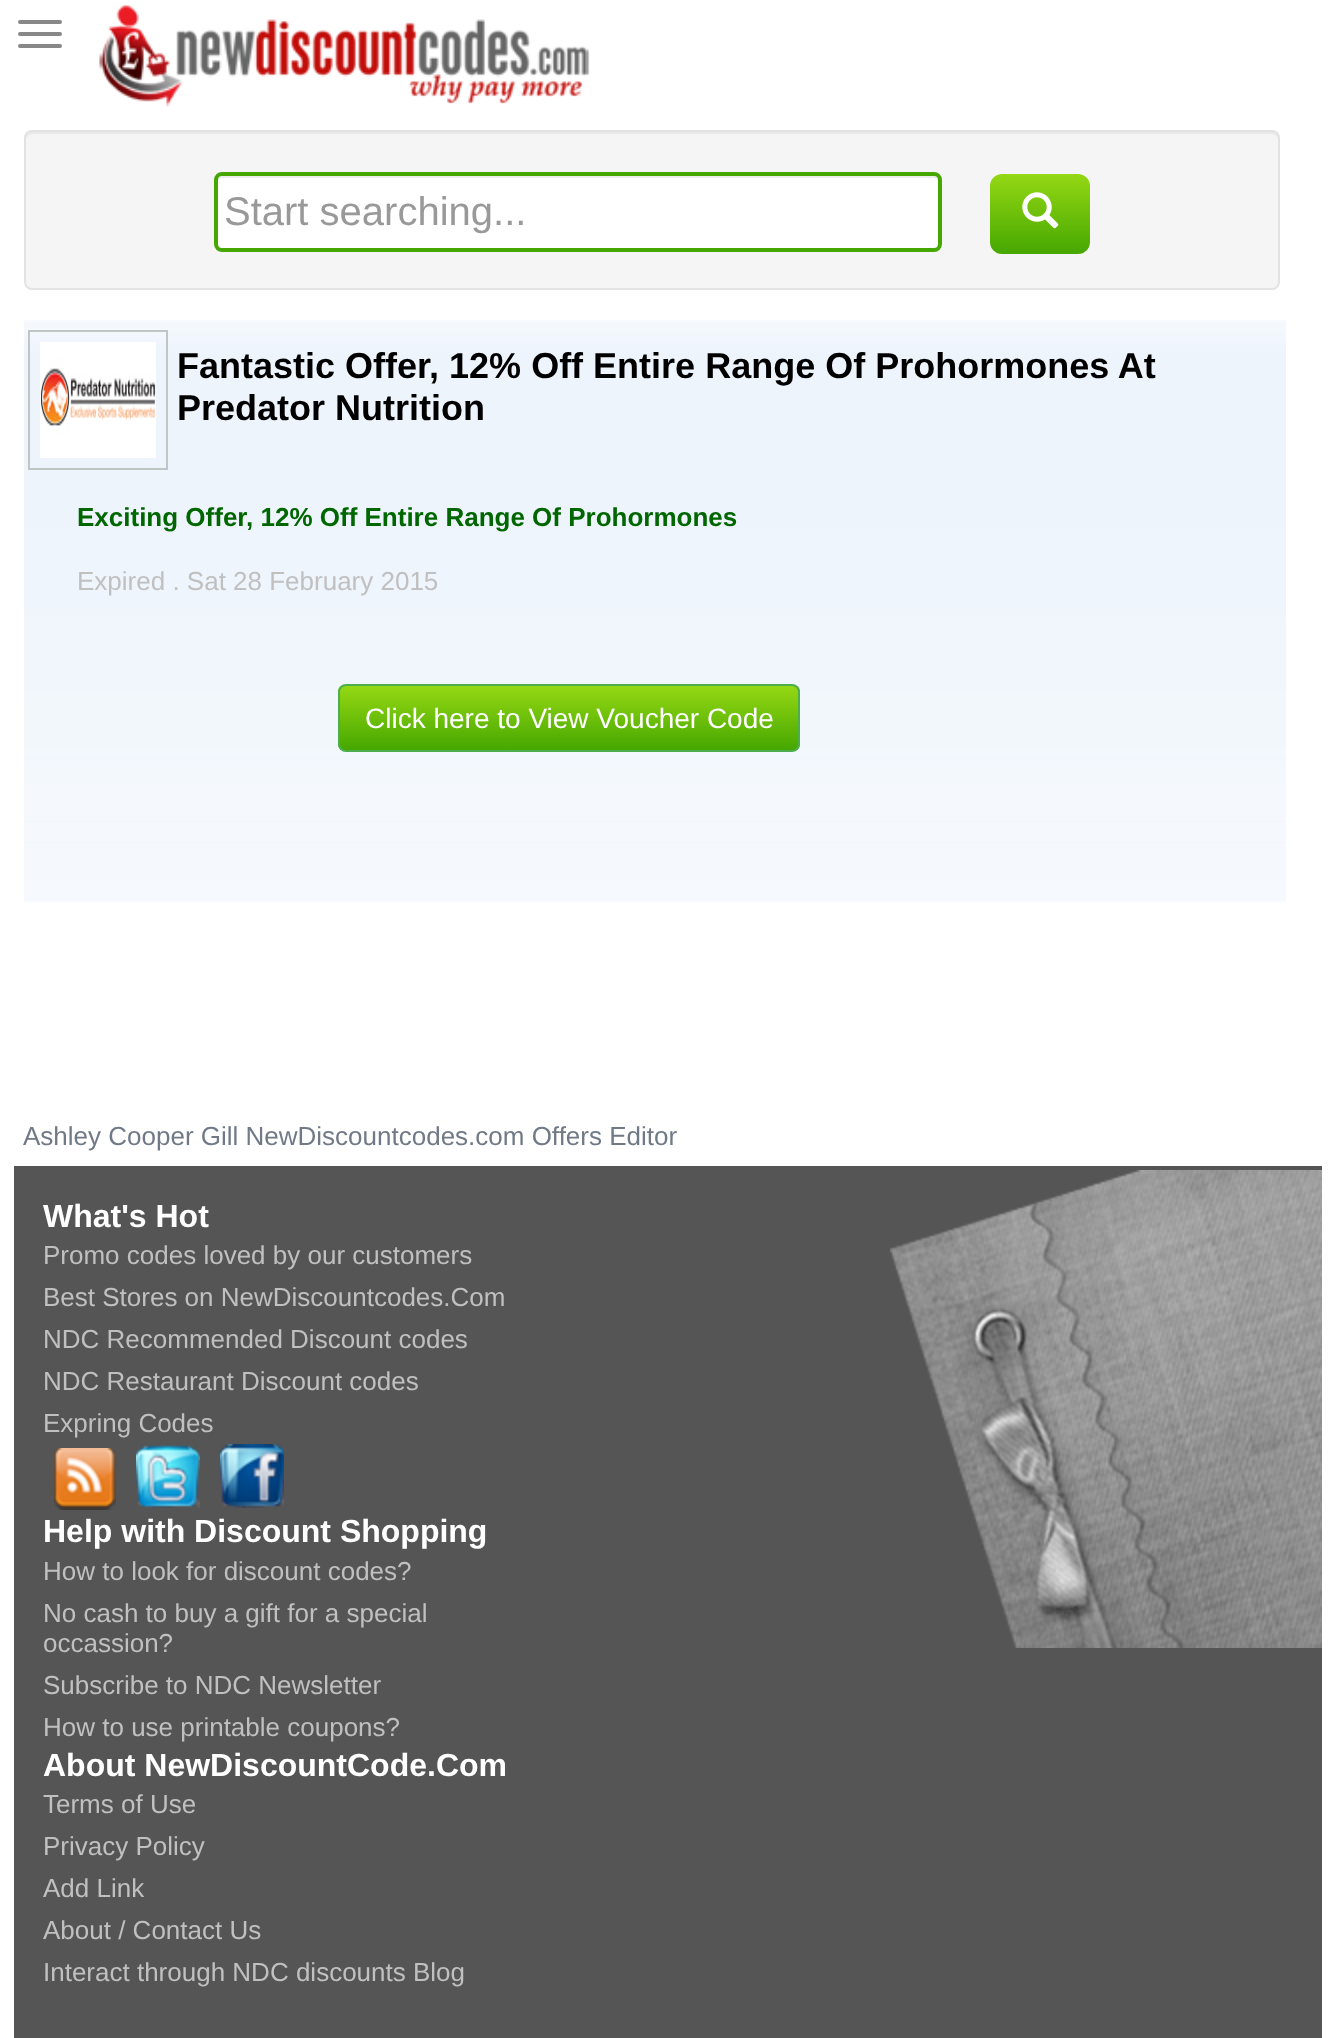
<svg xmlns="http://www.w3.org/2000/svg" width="1336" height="2038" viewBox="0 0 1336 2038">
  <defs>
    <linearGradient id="g1" gradientUnits="userSpaceOnUse" x1="1040" y1="174" x2="1040" y2="254"><stop offset="0" stop-color="rgb(149,216,20)"/><stop offset="1" stop-color="rgb(70,167,0)"/></linearGradient>
    <clipPath id="clip1"><rect x="338" y="684" width="462" height="68" rx="8"/></clipPath>
    <linearGradient id="g2" gradientUnits="userSpaceOnUse" x1="569" y1="686" x2="569" y2="750"><stop offset="0" stop-color="rgb(149,216,20)"/><stop offset="1" stop-color="rgb(70,167,0)"/></linearGradient>
  </defs>
  <rect width="100%" height="100%" fill="rgb(255,255,255)"/>
  <rect x="18" y="20" width="44" height="4" rx="2" fill="rgb(136,136,136)"/>
  <rect x="18" y="32" width="44" height="4" rx="2" fill="rgb(136,136,136)"/>
  <rect x="18" y="44" width="44" height="4" rx="2" fill="rgb(136,136,136)"/>
  <image x="99" y="5" width="491" height="102" href="pic1.png"/>
  <rect x="24" y="130" width="1256" height="160" rx="8" fill="rgb(245,245,245)"/>
  <path d="M32 134H1272C1275 134 1278 137 1278 140V138C1278 135 1275 132 1272 132H32C29 132 26 135 26 138V140C26 137 29 134 32 134Z" fill="rgb(233,233,233)"/>
  <rect x="25" y="131" width="1254" height="158" rx="7" fill="none" stroke="rgb(227,227,227)" stroke-width="2"/>
  <rect x="214" y="172" width="728" height="80" rx="8" fill="rgb(255,255,255)"/>
  <path d="M222 178H934C936 178 938 180 938 182C938 179 938 176 934 176H222C218 176 218 179 218 182C218 180 220 178 222 178Z" fill="rgb(236,236,236)"/>
  <rect x="216" y="174" width="724" height="76" rx="6" fill="none" stroke="rgb(70,167,0)" stroke-width="4"/>
  <text x="224" y="225" font-family="Liberation Sans" font-size="40" fill="rgb(153,153,153)">Start searching...</text>
  <rect x="990" y="174" width="100" height="80" rx="12" fill="url(#g1)"/>
  <image x="1022" y="192" width="37" height="37" href="pic2.png"/>
  <image x="24" y="320" width="1262" height="582" href="pic3.png"/>
  <rect x="29" y="331" width="138" height="138" fill="none" stroke="rgb(192,198,198)" stroke-width="2"/>
  <image x="40" y="342" width="116" height="116" href="pic4.png"/>
  <g font-family="Liberation Sans" font-size="36" font-weight="bold" fill="rgb(0,0,0)">
    <text>
      <tspan x="177" y="378">Fantastic Offer, 12% Off Entire Range Of Prohormones At</tspan>
      <tspan x="177" y="420">Predator Nutrition</tspan>
    </text>
  </g>
  <text x="77" y="526" font-family="Liberation Sans" font-size="26" font-weight="bold" fill="rgb(0,102,0)">Exciting Offer, 12% Off Entire Range Of Prohormones</text>
  <text x="77" y="590" font-family="Liberation Sans" font-size="26" fill="rgb(192,192,192)">Expired . Sat 28 February 2015</text>
  <g clip-path="url(#clip1)">
    <rect x="338" y="686" width="462" height="64" fill="url(#g2)"/>
  </g>
  <rect x="339" y="685" width="460" height="66" rx="7" fill="none" stroke="rgb(76,174,76)" stroke-width="2"/>
  <text x="365" y="728" font-family="Liberation Sans" font-size="28" fill="rgb(255,255,255)">Click here to View Voucher Code</text>
  <text x="23" y="1145" font-family="Liberation Sans" font-size="26" fill="rgb(112,122,135)">Ashley Cooper Gill NewDiscountcodes.com Offers Editor</text>
  <rect x="14" y="1166" width="1308" height="872" fill="rgb(85,85,85)"/>
  <text x="43" y="1227" font-family="Liberation Sans" font-size="32" font-weight="bold" fill="rgb(255,255,255)">What's Hot</text>
  <g font-family="Liberation Sans" font-size="26" fill="rgb(192,192,192)">
    <text>
      <tspan x="43" y="1264">Promo codes loved by our customers</tspan>
      <tspan x="43" y="1306">Best Stores on NewDiscountcodes.Com</tspan>
      <tspan x="43" y="1348">NDC Recommended Discount codes</tspan>
      <tspan x="43" y="1390">NDC Restaurant Discount codes</tspan>
      <tspan x="43" y="1432">Expring Codes</tspan>
    </text>
  </g>
  <image x="54" y="1448" width="62" height="62" href="pic5.png"/>
  <image x="136" y="1445" width="64" height="63" href="pic6.png"/>
  <image x="220" y="1444" width="64" height="64" href="pic7.png"/>
  <text x="43" y="1542" font-family="Liberation Sans" font-size="32" font-weight="bold" fill="rgb(255,255,255)">Help with Discount Shopping</text>
  <g font-family="Liberation Sans" font-size="26" fill="rgb(192,192,192)">
    <text>
      <tspan x="43" y="1580">How to look for discount codes?</tspan>
      <tspan x="43" y="1622">No cash to buy a gift for a special</tspan>
      <tspan x="43" y="1652">occassion?</tspan>
      <tspan x="43" y="1694">Subscribe to NDC Newsletter</tspan>
      <tspan x="43" y="1736">How to use printable coupons?</tspan>
    </text>
  </g>
  <text x="43" y="1776" font-family="Liberation Sans" font-size="32" font-weight="bold" fill="rgb(255,255,255)">About NewDiscountCode.Com</text>
  <g font-family="Liberation Sans" font-size="26" fill="rgb(192,192,192)">
    <text>
      <tspan x="43" y="1813">Terms of Use</tspan>
      <tspan x="43" y="1855">Privacy Policy</tspan>
      <tspan x="43" y="1897">Add Link</tspan>
      <tspan x="43" y="1939">About / Contact Us</tspan>
      <tspan x="43" y="1981">Interact through NDC discounts Blog</tspan>
    </text>
  </g>
  <image x="890" y="1170" width="432" height="478" href="pic8.png"/>
</svg>
